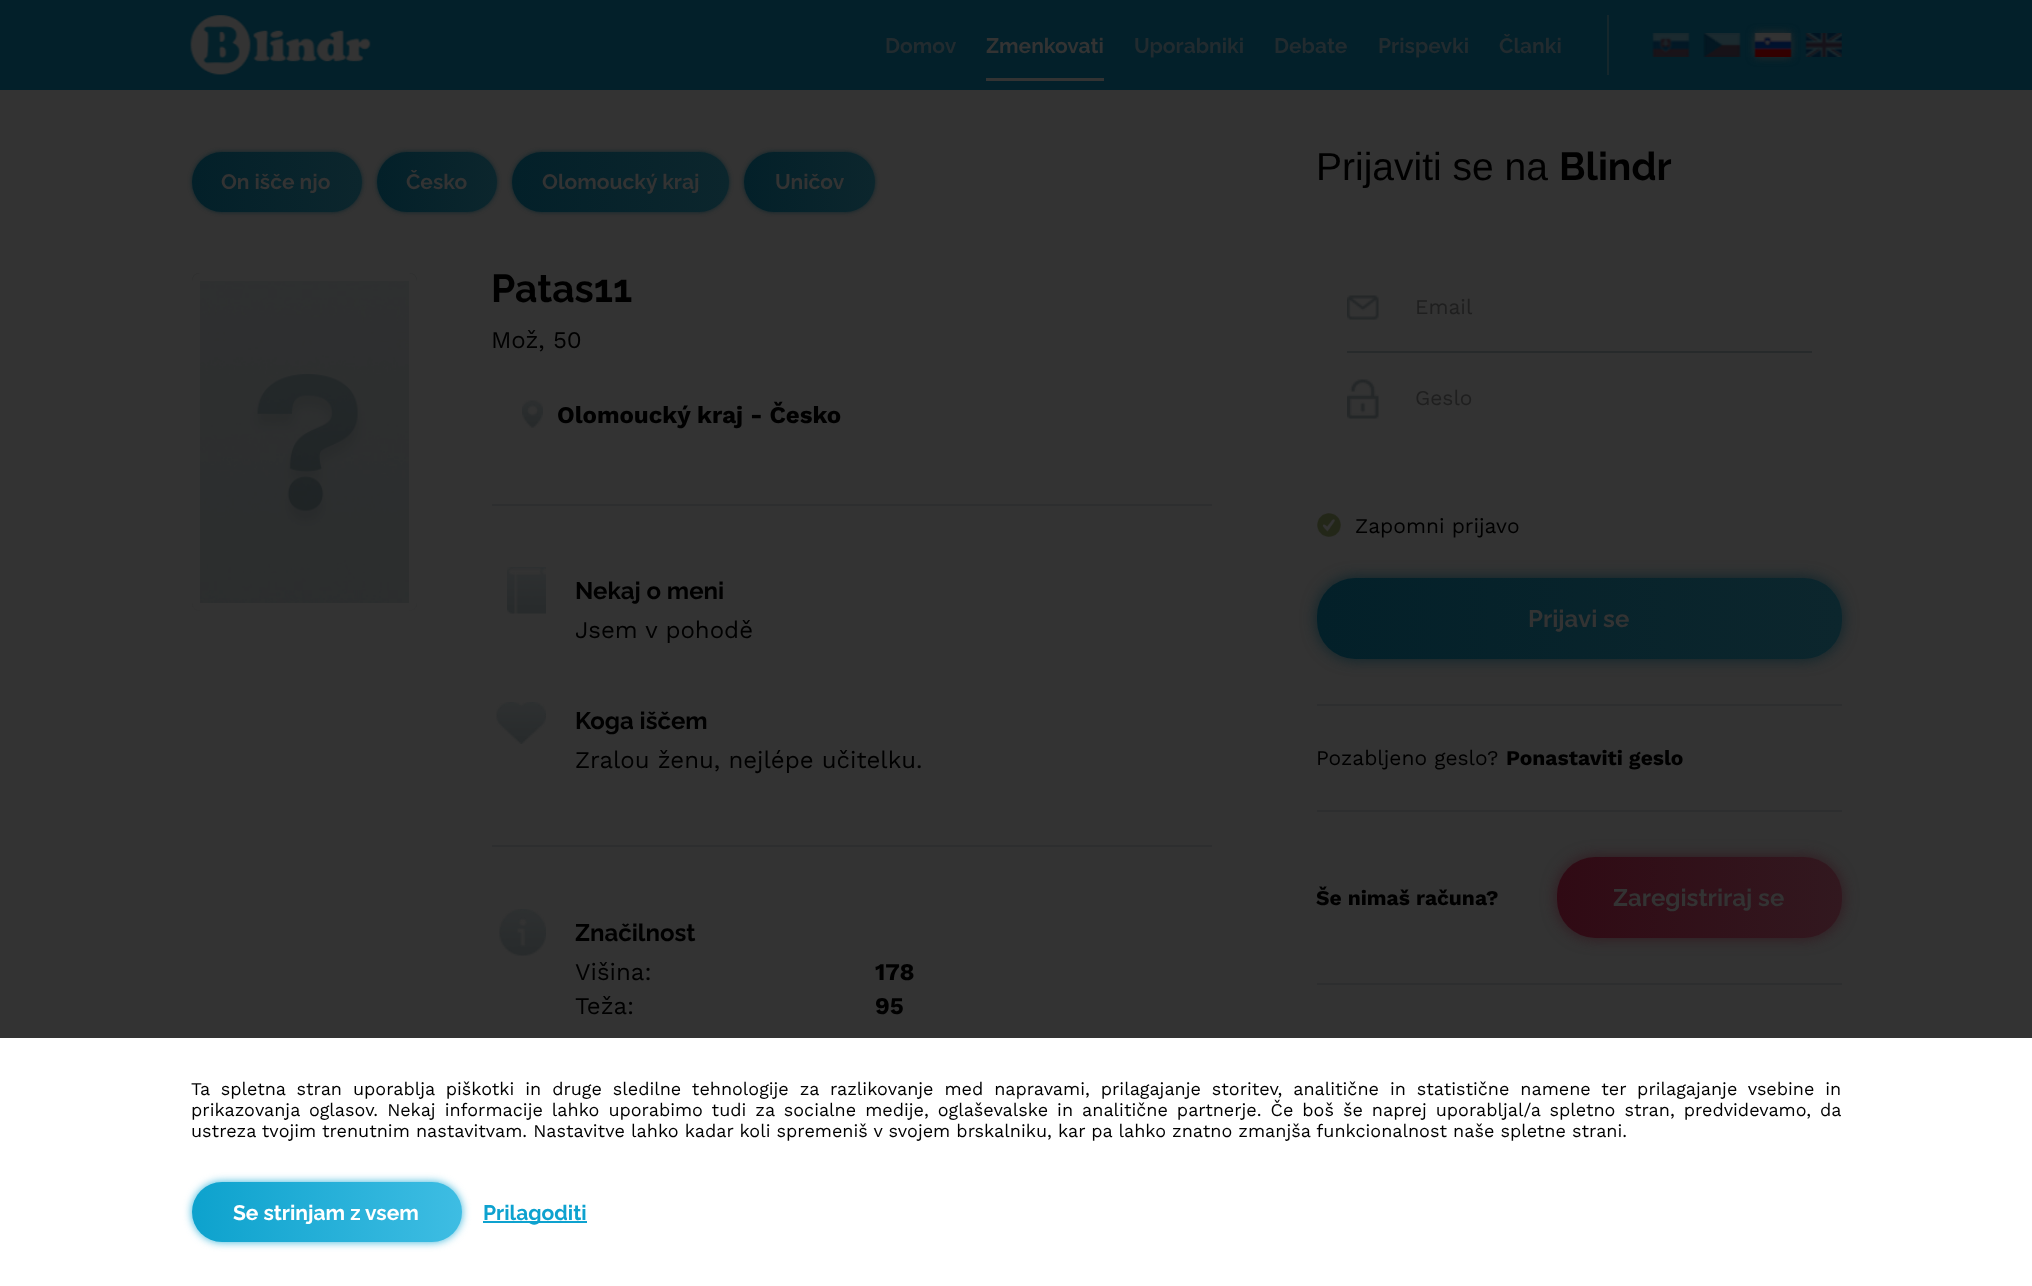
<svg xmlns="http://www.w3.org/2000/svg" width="2032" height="1286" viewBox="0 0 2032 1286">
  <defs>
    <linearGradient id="g1" gradientUnits="userSpaceOnUse" x1="192" y1="182" x2="362" y2="182"><stop offset="0" stop-color="rgb(3,32,41)"/><stop offset="1" stop-color="rgb(12,38,45)"/></linearGradient>
    <linearGradient id="g2" gradientUnits="userSpaceOnUse" x1="377" y1="182" x2="497" y2="182"><stop offset="0" stop-color="rgb(3,32,41)"/><stop offset="1" stop-color="rgb(12,38,45)"/></linearGradient>
    <linearGradient id="g3" gradientUnits="userSpaceOnUse" x1="512" y1="182" x2="729" y2="182"><stop offset="0" stop-color="rgb(3,32,41)"/><stop offset="1" stop-color="rgb(12,38,45)"/></linearGradient>
    <linearGradient id="g4" gradientUnits="userSpaceOnUse" x1="744" y1="182" x2="875" y2="182"><stop offset="0" stop-color="rgb(3,32,41)"/><stop offset="1" stop-color="rgb(12,38,45)"/></linearGradient>
    <linearGradient id="g5" gradientUnits="userSpaceOnUse" x1="1317" y1="618" x2="1842" y2="618"><stop offset="0" stop-color="rgb(3,32,41)"/><stop offset="1" stop-color="rgb(12,38,45)"/></linearGradient>
    <linearGradient id="g6" gradientUnits="userSpaceOnUse" x1="1557" y1="897" x2="1842" y2="897"><stop offset="0" stop-color="rgb(48,10,20)"/><stop offset="1" stop-color="rgb(50,24,31)"/></linearGradient>
    <linearGradient id="g7" gradientUnits="userSpaceOnUse" x1="192" y1="1212" x2="462" y2="1212"><stop offset="0" stop-color="rgb(13,162,205)"/><stop offset="1" stop-color="rgb(62,189,227)"/></linearGradient>
  </defs>
  <rect width="100%" height="100%" fill="rgb(51,51,51)"/>
  <rect x="0" y="0" width="2032" height="90" fill="rgb(3,32,42)"/>
  <image x="190" y="15" width="181" height="60" href="pic1.png"/>
  <text x="885" y="53" font-family="Raleway" font-size="21" font-weight="bold" fill="rgb(34,43,47)">Domov</text>
  <rect x="986" y="78" width="118" height="3" fill="rgb(51,51,51)"/>
  <text x="986" y="53" font-family="Raleway" font-size="21" font-weight="bold" fill="rgb(51,51,51)">Zmenkovati</text>
  <g font-family="Raleway" font-size="21" font-weight="bold" fill="rgb(34,43,47)">
    <text x="1134" y="53">Uporabniki</text>
    <text x="1274" y="53">Debate</text>
    <text x="1378" y="53">Prispevki</text>
    <text x="1499" y="53">Članki</text>
  </g>
  <rect x="1607" y="15" width="2" height="60" fill="rgb(22,39,44)"/>
  <image x="1652" y="33" width="38" height="24" href="pic2.png"/>
  <image x="1703" y="33" width="38" height="24" href="pic3.png"/>
  <rect x="1755" y="33" width="36" height="24" fill="rgb(42,42,42)" filter="blur(4px)"/>
  <image x="1754" y="33" width="38" height="24" href="pic4.png"/>
  <image x="1805" y="33" width="37" height="24" href="pic5.png"/>
  <rect x="192" y="152" width="170" height="60" rx="30" fill="rgb(11,36,43)" filter="blur(2px)"/>
  <rect x="192" y="152" width="170" height="60" rx="30" fill="url(#g1)"/>
  <text x="221" y="189" font-family="Raleway" font-size="21" font-weight="bold" fill="rgb(51,51,51)">On išče njo</text>
  <rect x="377" y="152" width="120" height="60" rx="30" fill="rgb(11,36,43)" filter="blur(2px)"/>
  <rect x="377" y="152" width="120" height="60" rx="30" fill="url(#g2)"/>
  <text x="406" y="189" font-family="Raleway" font-size="21" font-weight="bold" fill="rgb(51,51,51)">Česko</text>
  <rect x="512" y="152" width="217" height="60" rx="30" fill="rgb(11,36,43)" filter="blur(2px)"/>
  <rect x="512" y="152" width="217" height="60" rx="30" fill="url(#g3)"/>
  <text x="542" y="189" font-family="Raleway" font-size="21" font-weight="bold" fill="rgb(51,51,51)">Olomoucký kraj</text>
  <rect x="744" y="152" width="131" height="60" rx="30" fill="rgb(11,36,43)" filter="blur(2px)"/>
  <rect x="744" y="152" width="131" height="60" rx="30" fill="url(#g4)"/>
  <text x="775" y="189" font-family="Raleway" font-size="21" font-weight="bold" fill="rgb(51,51,51)">Uničov</text>
  <image x="192" y="273" width="225" height="338" href="pic6.png"/>
  <rect x="196" y="277" width="217" height="330" rx="4" fill="none" stroke="rgb(51,51,51)" stroke-width="8"/>
  <text x="491" y="302" font-family="Raleway" font-size="39" font-weight="bold" fill="rgb(0,0,0)">Patas11</text>
  <rect x="492" y="504" width="720" height="2" fill="rgb(45,46,47)"/>
  <text x="491" y="348" font-family="Work Sans" font-size="24" fill="rgb(0,0,0)">Mož, 50</text>
  <image x="522" y="400" width="21" height="28" href="pic7.png"/>
  <text x="557" y="423" font-family="Work Sans" font-size="24" font-weight="bold" fill="rgb(0,0,0)">Olomoucký kraj - Česko</text>
  <image x="507" y="567" width="39" height="47" href="pic8.png"/>
  <text x="575" y="599" font-family="Raleway" font-size="24" font-weight="bold" fill="rgb(0,0,0)">Nekaj o meni</text>
  <text x="575" y="638" font-family="Work Sans" font-size="24" fill="rgb(0,0,0)">Jsem v pohodě</text>
  <rect x="492" y="845" width="720" height="2" fill="rgb(45,46,47)"/>
  <image x="496" y="702" width="50" height="42" href="pic9.png"/>
  <text x="575" y="729" font-family="Raleway" font-size="24" font-weight="bold" fill="rgb(0,0,0)">Koga iščem</text>
  <text x="575" y="768" font-family="Work Sans" font-size="24" fill="rgb(0,0,0)">Zralou ženu, nejlépe učitelku.</text>
  <image x="499" y="909" width="47" height="47" href="pic10.png"/>
  <text x="575" y="941" font-family="Raleway" font-size="24" font-weight="bold" fill="rgb(0,0,0)">Značilnost</text>
  <text x="575" y="980" font-family="Work Sans" font-size="24" fill="rgb(0,0,0)">Višina:</text>
  <text x="875" y="980" font-family="Work Sans" font-size="24" font-weight="bold" fill="rgb(0,0,0)">178</text>
  <text x="575" y="1014" font-family="Work Sans" font-size="24" fill="rgb(0,0,0)">Teža:</text>
  <text x="875" y="1014" font-family="Work Sans" font-size="24" font-weight="bold" fill="rgb(0,0,0)">95</text>
  <text x="1316" y="180" font-family="Liberation Sans" font-size="39" fill="rgb(0,0,0)">Prijaviti se na</text>
  <text x="1559" y="180" font-family="Raleway" font-size="39" font-weight="bold" fill="rgb(0,0,0)">Blindr</text>
  <rect x="1347" y="351" width="465" height="2" fill="rgb(39,42,43)"/>
  <image x="1347" y="295" width="32" height="25" href="pic11.png"/>
  <text x="1415" y="314" font-family="Work Sans" font-size="21" fill="rgb(31,31,31)">Email</text>
  <image x="1347" y="379" width="32" height="40" href="pic12.png"/>
  <text x="1415" y="405" font-family="Work Sans" font-size="21" fill="rgb(31,31,31)">Geslo</text>
  <image x="1317" y="513" width="24" height="24" href="pic13.png"/>
  <text x="1355" y="533" font-family="Work Sans" font-size="21" fill="rgb(0,0,0)">Zapomni prijavo</text>
  <rect x="1317" y="578" width="525" height="81" rx="38" fill="rgb(11,36,43)" filter="blur(7.5px)"/>
  <rect x="1317" y="578" width="525" height="81" rx="38" fill="url(#g5)"/>
  <text x="1528" y="627" font-family="Raleway" font-size="24" font-weight="bold" fill="rgb(51,51,51)">Prijavi se</text>
  <rect x="1317" y="704" width="525" height="2" fill="rgb(45,46,47)"/>
  <text x="1316" y="765" font-family="Work Sans" font-size="21" fill="rgb(0,0,0)">Pozabljeno geslo?</text>
  <text x="1506" y="765" font-family="Work Sans" font-size="21" font-weight="bold" fill="rgb(0,0,0)">Ponastaviti geslo</text>
  <rect x="1317" y="810" width="525" height="2" fill="rgb(45,46,47)"/>
  <text x="1316" y="905" font-family="Work Sans" font-size="21" font-weight="bold" fill="rgb(0,0,0)">Še nimaš računa?</text>
  <rect x="1557" y="857" width="285" height="81" rx="38" fill="rgb(50,24,31)" filter="blur(7.5px)"/>
  <rect x="1557" y="857" width="285" height="81" rx="38" fill="url(#g6)"/>
  <text x="1613" y="906" font-family="Raleway" font-size="24" font-weight="bold" fill="rgb(51,51,51)">Zaregistriraj se</text>
  <rect x="1317" y="983" width="525" height="2" fill="rgb(45,46,47)"/>
  <rect x="0" y="1038" width="2032" height="248" fill="rgb(255,255,255)"/>
  <g font-family="Work Sans" font-size="18" fill="rgb(0,0,0)">
    <text>
      <tspan x="191" y="1095" word-spacing="4.8">Ta spletna stran uporablja piškotki in druge sledilne tehnologije za razlikovanje med napravami, prilagajanje storitev, analitične in statistične namene ter prilagajanje vsebine in</tspan>
      <tspan x="191" y="1116" word-spacing="2.9">prikazovanja oglasov. Nekaj informacije lahko uporabimo tudi za socialne medije, oglaševalske in analitične partnerje. Če boš še naprej uporabljal/a spletno stran, predvidevamo, da</tspan>
      <tspan x="191" y="1137">ustreza tvojim trenutnim nastavitvam. Nastavitve lahko kadar koli spremeniš v svojem brskalniku, kar pa lahko znatno zmanjša funkcionalnost naše spletne strani.</tspan>
    </text>
  </g>
  <rect x="192" y="1182" width="270" height="60" rx="30" fill="rgb(53,179,217)" filter="blur(4px)"/>
  <rect x="192" y="1182" width="270" height="60" rx="30" fill="url(#g7)"/>
  <text x="233" y="1220" font-family="Raleway" font-size="21" font-weight="bold" fill="rgb(255,255,255)">Se strinjam z vsem</text>
  <rect x="483" y="1221" width="104" height="2" fill="rgb(14,162,207)"/>
  <text x="483" y="1220" font-family="Raleway" font-size="21" font-weight="bold" fill="rgb(14,162,207)">Prilagoditi</text>
</svg>
